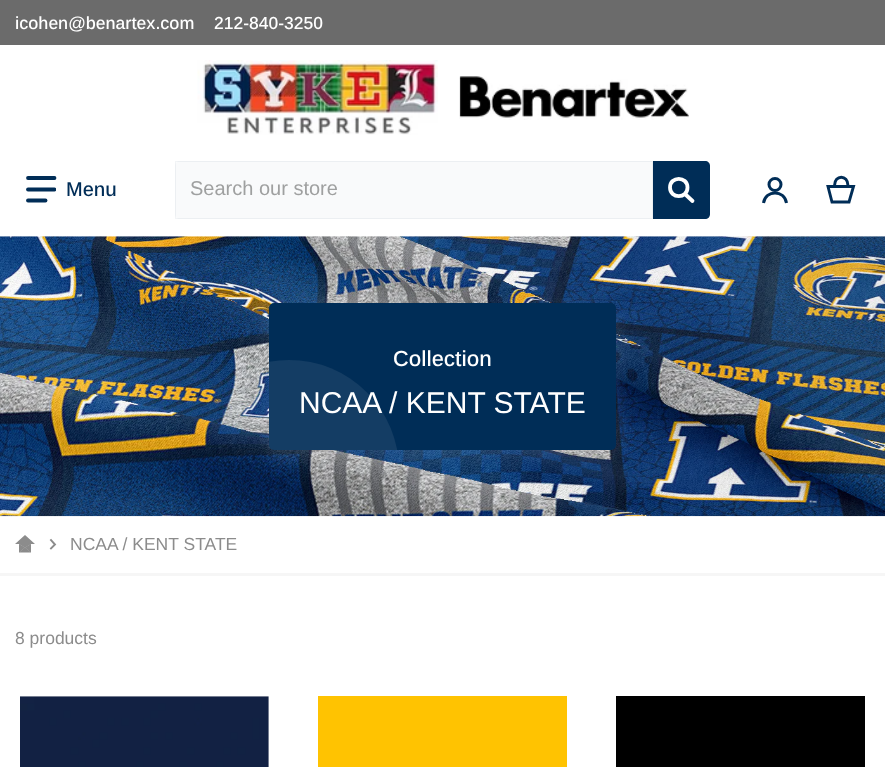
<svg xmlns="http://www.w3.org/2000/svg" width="885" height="767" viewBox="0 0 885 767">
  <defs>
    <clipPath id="clip1"><rect x="26" y="176" width="30" height="28"/></clipPath>
    <clipPath id="clip2"><rect x="269" y="303" width="347" height="147" rx="5"/></clipPath>
  </defs>
  <rect width="100%" height="100%" fill="rgb(255,255,255)"/>
  <rect x="0" y="0" width="885" height="45" fill="rgb(107,107,107)"/>
  <g font-family="Arimo" font-size="17.5" font-weight="500" fill="rgb(255,255,255)">
    <text x="15" y="29">icohen@benartex.com</text>
    <text x="214" y="29">212-840-3250</text>
  </g>
  <image x="197" y="60" width="241" height="75" href="pic1.png"/>
  <image x="459" y="76" width="230" height="44" href="pic2.png"/>
  <path d="M28 178H54.5" fill="none" stroke="rgb(0,45,87)" stroke-width="3.8" stroke-linecap="round"/>
  <g clip-path="url(#clip1)">
    <path d="M28 189.5H54.5" fill="none" stroke="rgb(0,45,87)" stroke-width="3.8" stroke-linecap="round"/>
  </g>
  <path d="M28 200.5H45.5" fill="none" stroke="rgb(0,45,87)" stroke-width="3.8" stroke-linecap="round"/>
  <text x="66" y="196" font-family="Arimo" font-size="20" font-weight="500" fill="rgb(0,45,87)">Menu</text>
  <path d="M180 161H653V219H180C177 219 175 217 175 214V166C175 163 177 161 180 161Z" fill="rgb(249,250,251)"/>
  <rect x="175.5" y="161.5" width="477" height="57" fill="none" stroke="rgba(0,45,87,0.05)"/>
  <text x="190" y="195" font-family="Arimo" font-size="20" fill="rgb(159,160,160)">Search our store</text>
  <path d="M653 161H705C708 161 710 163 710 166V214C710 217 708 219 705 219H653Z" fill="rgb(0,45,87)"/>
  <path d="M692.5 201L685 194M687.5 187.5C687.5 199 670 199 670 187.5C670 176 687.5 176 687.5 187.5Z" fill="none" stroke="rgb(255,255,255)" stroke-width="3.8" stroke-linecap="round" stroke-linejoin="round"/>
  <circle cx="775" cy="184.5" r="6" fill="none" stroke="rgb(0,45,87)" stroke-width="3"/>
  <path d="M786.5 203C784.5 189.5 765.5 189.5 763.5 203" fill="none" stroke="rgb(0,45,87)" stroke-width="3"/>
  <path d="M834.5 185.5C834.5 174.5 848 174.5 848 185.5" fill="none" stroke="rgb(0,45,87)" stroke-width="2.9" stroke-linecap="square" stroke-linejoin="round"/>
  <path d="M849 202L853.5 186.5H828L832 202Z" fill="none" stroke="rgb(0,45,87)" stroke-width="2.9" stroke-linecap="square"/>
  <rect x="0" y="236" width="885" height="1" fill="rgb(246,246,246)"/>
  <image x="0" y="236" width="885" height="281" href="pic3.png"/>
  <rect x="269" y="308" width="347" height="147" rx="5" fill="rgba(255,255,255,0.1)" filter="blur(9.5px)"/>
  <rect x="269" y="303" width="347" height="147" rx="5" fill="rgb(0,45,87)"/>
  <rect x="0" y="573" width="885" height="3" fill="rgb(246,246,246)"/>
  <g clip-path="url(#clip2)">
    <circle cx="289" cy="470" r="110" fill="rgba(255,255,255,0.08)"/>
  </g>
  <text x="393" y="366" font-family="Arimo" font-size="21.75" font-weight="500" fill="rgb(255,255,255)">Collection</text>
  <text x="299" y="413" font-family="Arimo" font-size="30" fill="rgb(255,255,255)">NCAA / KENT STATE</text>
  <path d="M35 544H15L25 535ZM19 544H31L25 547.5Z" fill="rgb(140,140,140)"/>
  <path d="M31 544V552.5L25 547.5Z" fill="rgba(24,24,24,0.5)"/>
  <path d="M31 552.5H19L25 547.5Z" fill="rgba(24,24,24,0.5)"/>
  <path d="M19 552.5V544L25 547.5Z" fill="rgba(24,24,24,0.5)"/>
  <path d="M51 548.5L55 544.5L51 540" fill="none" stroke="rgb(140,140,140)" stroke-width="1.9" stroke-linecap="square"/>
  <g font-family="Arimo" font-size="17.5" fill="rgb(140,140,140)">
    <text x="70" y="550">NCAA / KENT STATE</text>
    <text x="15" y="644">8 products</text>
  </g>
  <rect x="20" y="696" width="249" height="71" fill="rgb(246,246,246)"/>
  <image x="20" y="696" width="249" height="71" href="pic4.png"/>
  <rect x="318" y="696" width="249" height="71" fill="rgb(255,195,1)"/>
  <rect x="616" y="696" width="249" height="71" fill="rgb(0,0,0)"/>
</svg>
